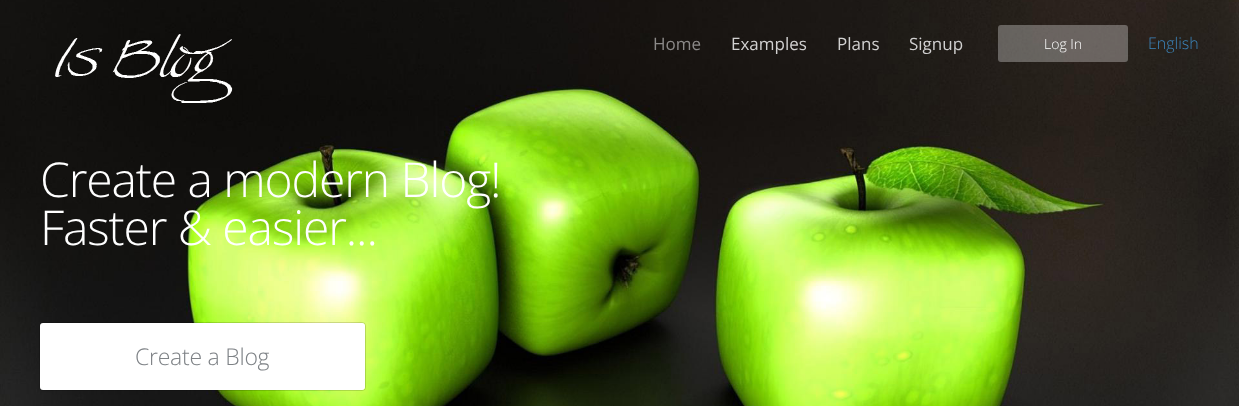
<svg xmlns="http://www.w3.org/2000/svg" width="1239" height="406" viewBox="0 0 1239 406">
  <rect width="100%" height="100%" fill="rgb(255,255,255)"/>
  <image x="0" y="0" width="1239" height="406" href="pic1.png"/>
  <image x="55" y="34" width="178" height="69" href="pic2.png"/>
  <text x="653" y="50" font-family="Open Sans" font-size="17" fill="rgb(139,137,136)">Home</text>
  <g font-family="Open Sans" font-size="17" fill="rgb(209,208,208)">
    <text x="731" y="50">Examples</text>
    <text x="837" y="50">Plans</text>
    <text x="909" y="50">Signup</text>
  </g>
  <rect x="998" y="25" width="130" height="37" rx="3" fill="rgba(255,255,255,0.3)"/>
  <text x="1044" y="49" font-family="Open Sans" font-size="14" font-weight="300" fill="rgb(255,255,255)">Log In</text>
  <text x="1148" y="49" font-family="Open Sans" font-size="16" font-weight="300" fill="rgb(60,134,190)">English</text>
  <g font-family="Open Sans" font-size="48" font-weight="300" letter-spacing="-1.1" fill="rgb(255,255,255)">
    <text>
      <tspan x="40" y="197">Create a modern Blog!</tspan>
      <tspan x="40" y="245">Faster &amp; easier...</tspan>
    </text>
  </g>
  <rect x="39.5" y="322.5" width="326" height="68" rx="3.5" fill="none" stroke="rgba(0,0,0,0.15)"/>
  <rect x="40" y="323" width="325" height="67" rx="3" fill="rgb(255,255,255)"/>
  <text x="135" y="365" font-family="Open Sans" font-size="23" font-weight="300" letter-spacing="-0.25" fill="rgb(126,130,134)">Create a Blog</text>
</svg>
